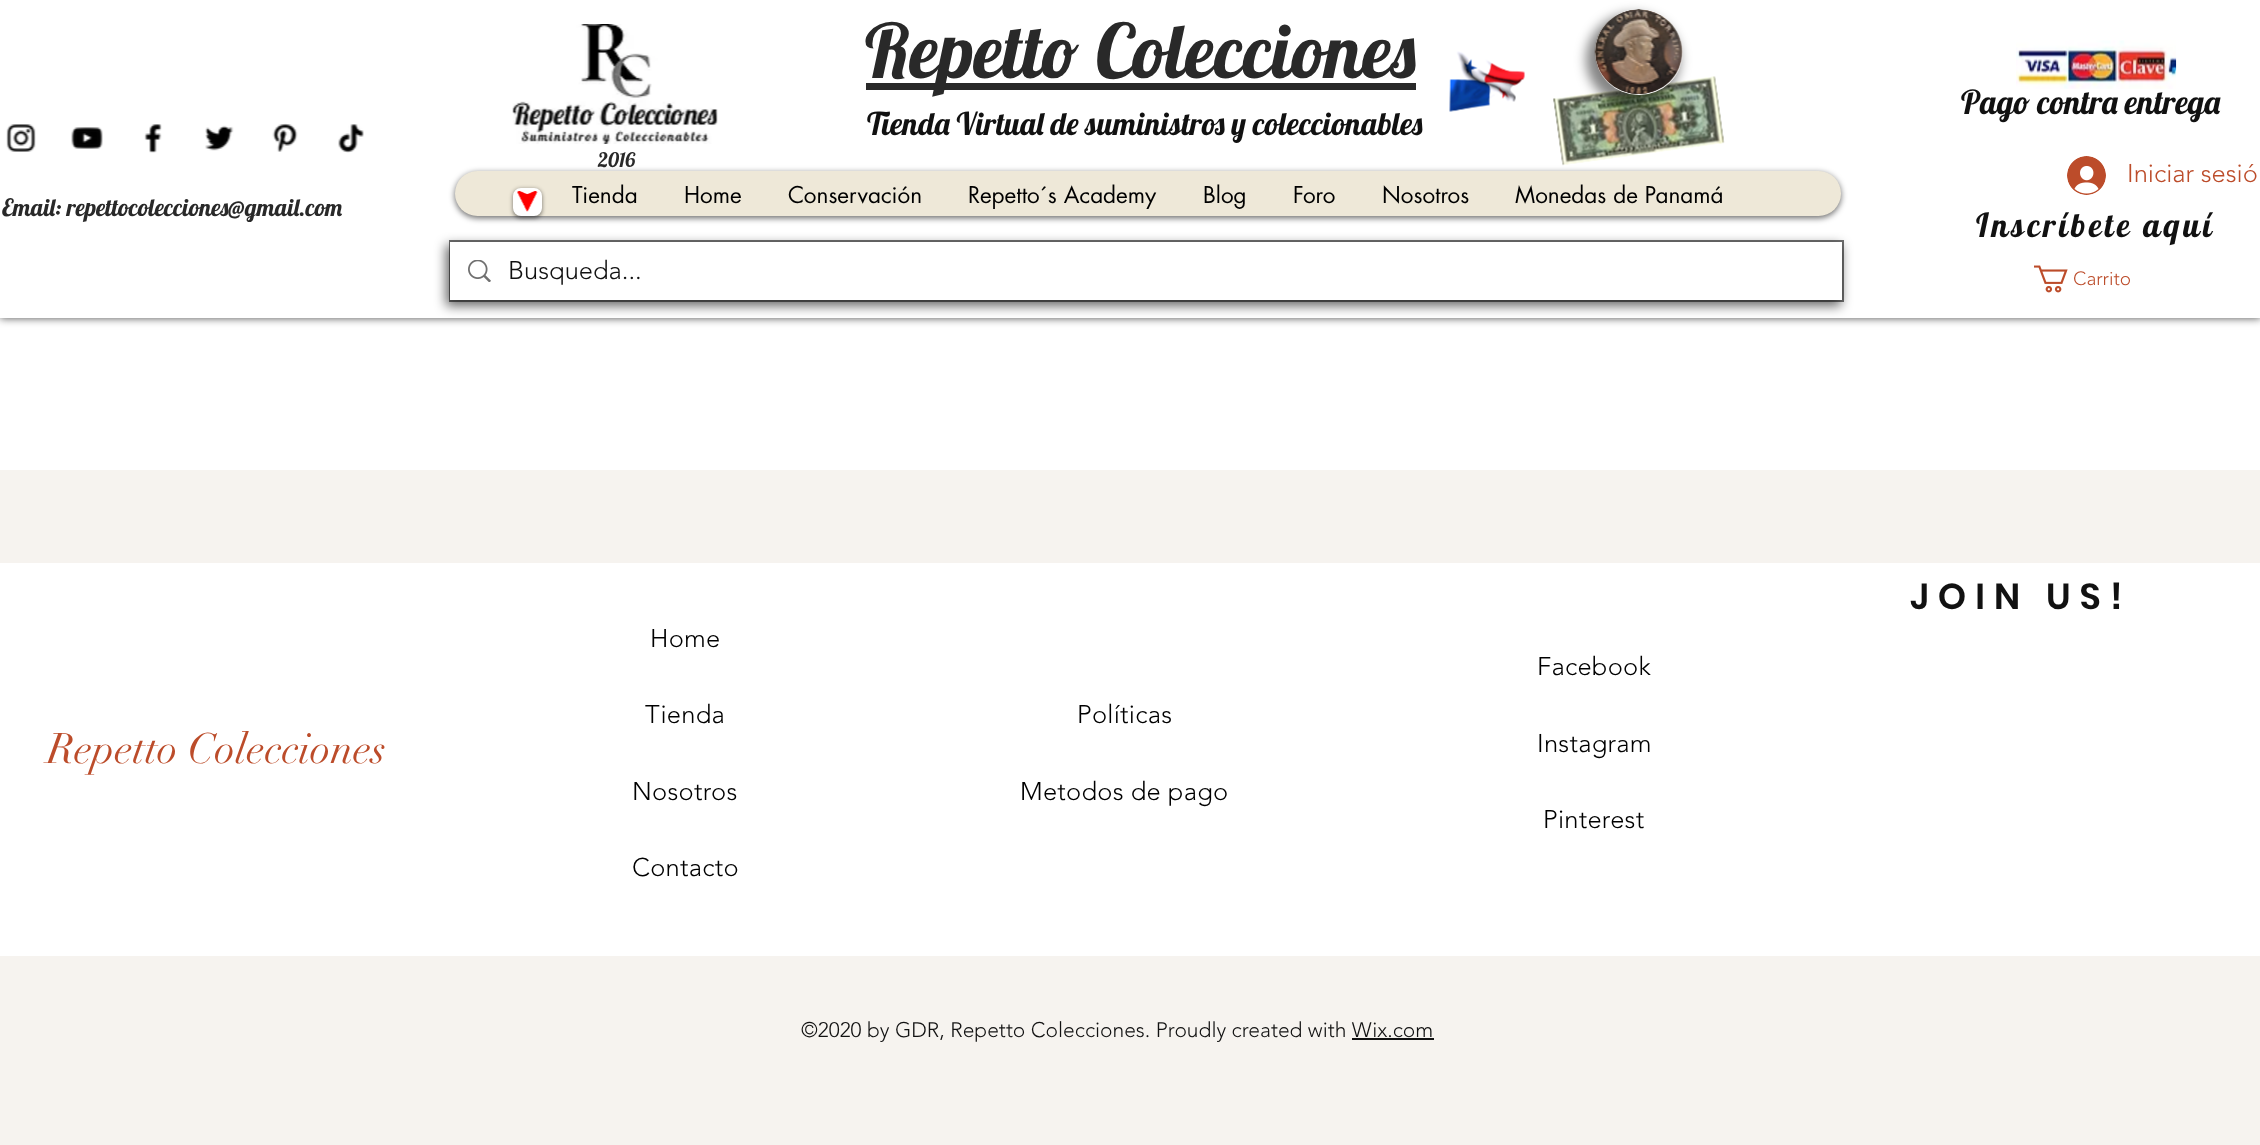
<svg xmlns="http://www.w3.org/2000/svg" width="2260" height="1145" viewBox="0 0 2260 1145">
  <rect width="100%" height="100%" fill="rgb(255,255,255)"/>
  <rect x="0" y="0" width="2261" height="318" fill="rgba(0,0,0,0.7)" filter="blur(4px)"/>
  <rect x="0" y="0" width="2260" height="318" fill="rgb(255,255,255)"/>
  <rect x="866" y="83" width="550" height="7" fill="rgb(41,41,41)"/>
  <text x="865" y="78" font-family="Lobster" font-size="75" fill="rgb(41,41,41)">Repetto Colecciones</text>
  <image x="1449" y="51" width="76" height="61" href="pic1.png"/>
  <image x="1553" y="76" width="172" height="90" href="pic3.png"/>
  <rect x="1586" y="14" width="94" height="91" rx="45.5" fill="rgba(0,0,0,0.48)" filter="blur(6px)"/>
  <ellipse cx="1639" cy="52" rx="44" ry="43" fill="rgb(255,255,255)"/>
  <image x="1594" y="9" width="89" height="86" href="pic2.png"/>
  <text x="867" y="135" font-family="Lobster" font-size="31.5" fill="rgb(17,17,17)">Tienda Virtual de suministros y coleccionables</text>
  <text x="598" y="167" font-family="Lobster" font-size="20" fill="rgb(41,41,41)">2016</text>
  <rect x="455" y="173" width="1386" height="45" rx="22.5" fill="rgba(0,0,0,0.6)" filter="blur(3px)"/>
  <rect x="455" y="171" width="1386" height="45" rx="22.5" fill="rgb(238,232,216)"/>
  <g font-family="futura" font-size="22.5" fill="rgb(0,0,0)">
    <text x="572" y="203">Tienda</text>
    <text x="684" y="203">Home</text>
    <text x="788" y="203">Conservación</text>
    <text x="968" y="203">Repetto´s Academy</text>
    <text x="1203" y="203">Blog</text>
    <text x="1293" y="203">Foro</text>
    <text x="1382" y="203">Nosotros</text>
    <text x="1515" y="203">Monedas de Panamá</text>
  </g>
  <rect x="446" y="245" width="1395" height="61" fill="rgba(0,0,0,0.6)" filter="blur(6px)"/>
  <rect x="450" y="241" width="1393" height="60" fill="none" stroke="rgba(17,17,17,0.6)" stroke-width="2"/>
  <rect x="450" y="242" width="1392" height="58" fill="rgb(255,255,255)"/>
  <image x="468" y="260" width="23" height="22" href="pic4.png"/>
  <text x="508" y="279" font-family="'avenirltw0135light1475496'" font-size="25.5" font-weight="300" fill="rgb(17,17,17)">Busqueda...</text>
  <image x="512" y="24" width="206" height="120" href="pic5.png"/>
  <image x="2016" y="40" width="161" height="49" href="pic6.png"/>
  <text x="1961" y="114" font-family="Lobster" font-size="33" fill="rgb(17,17,17)">Pago contra entrega</text>
  <image x="6" y="124" width="30" height="28" href="pic7.png"/>
  <image x="71" y="127" width="32" height="22" href="pic8.png"/>
  <image x="144" y="124" width="18" height="29" href="pic9.png"/>
  <image x="205" y="125" width="29" height="26" href="pic10.png"/>
  <image x="272" y="123" width="26" height="29" href="pic11.png"/>
  <image x="338" y="124" width="26" height="29" href="pic12.png"/>
  <image x="2067" y="156" width="39" height="39" href="pic13.png"/>
  <text x="2127" y="182" font-family="'avenirltw0135light1475496'" font-size="25.5" font-weight="300" fill="rgb(188,76,42)">Iniciar sesió</text>
  <text x="2" y="216" font-family="Lobster" font-size="24" fill="rgb(41,41,41)">Email: repettocolecciones@gmail.com</text>
  <rect x="513" y="189" width="29" height="29" rx="8" fill="rgba(0,0,0,0.5)" filter="blur(2px)"/>
  <rect x="514.5" y="189.5" width="26" height="25" rx="6.5" fill="rgb(255,255,255)" stroke="rgb(255,255,255)" stroke-width="3"/>
  <image x="517" y="191" width="21" height="21" href="pic14.png"/>
  <text x="1976" y="237" font-family="Lobster" font-size="33" letter-spacing="3.25" fill="rgb(17,17,17)">Inscríbete aquí</text>
  <image x="2034" y="265" width="34" height="28" href="pic15.png"/>
  <text x="2073" y="285" font-family="'avenirltw0135light1475496'" font-size="19" font-weight="300" fill="rgb(188,76,42)">Carrito</text>
  <rect x="0" y="470" width="2260" height="675" fill="rgb(246,243,239)"/>
  <rect x="0" y="563" width="2260" height="393" fill="rgb(255,255,255)"/>
  <text x="1910" y="609" font-family="Poppins" font-size="36" font-weight="600" letter-spacing="9" fill="rgb(17,17,17)">JOIN US!</text>
  <text x="47" y="763" font-family="didot" font-size="42" fill="rgb(188,76,42)">Repetto Colecciones</text>
  <g font-family="'avenirltw0135light1475496'" font-size="25.5" font-weight="300" letter-spacing="0.25" fill="rgb(0,0,0)">
    <text x="650" y="647">Home</text>
    <text x="645" y="723">Tienda</text>
    <text x="632" y="800">Nosotros</text>
    <text x="632" y="876">Contacto</text>
    <text x="1077" y="723">Políticas</text>
    <text x="1020" y="800">Metodos de pago</text>
    <text x="1537" y="675">Facebook</text>
    <text x="1537" y="752">Instagram</text>
    <text x="1543" y="828">Pinterest</text>
  </g>
  <text x="801" y="1037" font-family="'avenirltw0135light1475496'" font-size="21" font-weight="300" fill="rgb(17,17,17)">©2020 by GDR, Repetto Colecciones. Proudly created with Wix.com</text>
  <rect x="1352" y="1038" width="82" height="2" fill="rgb(17,17,17)"/>
</svg>
